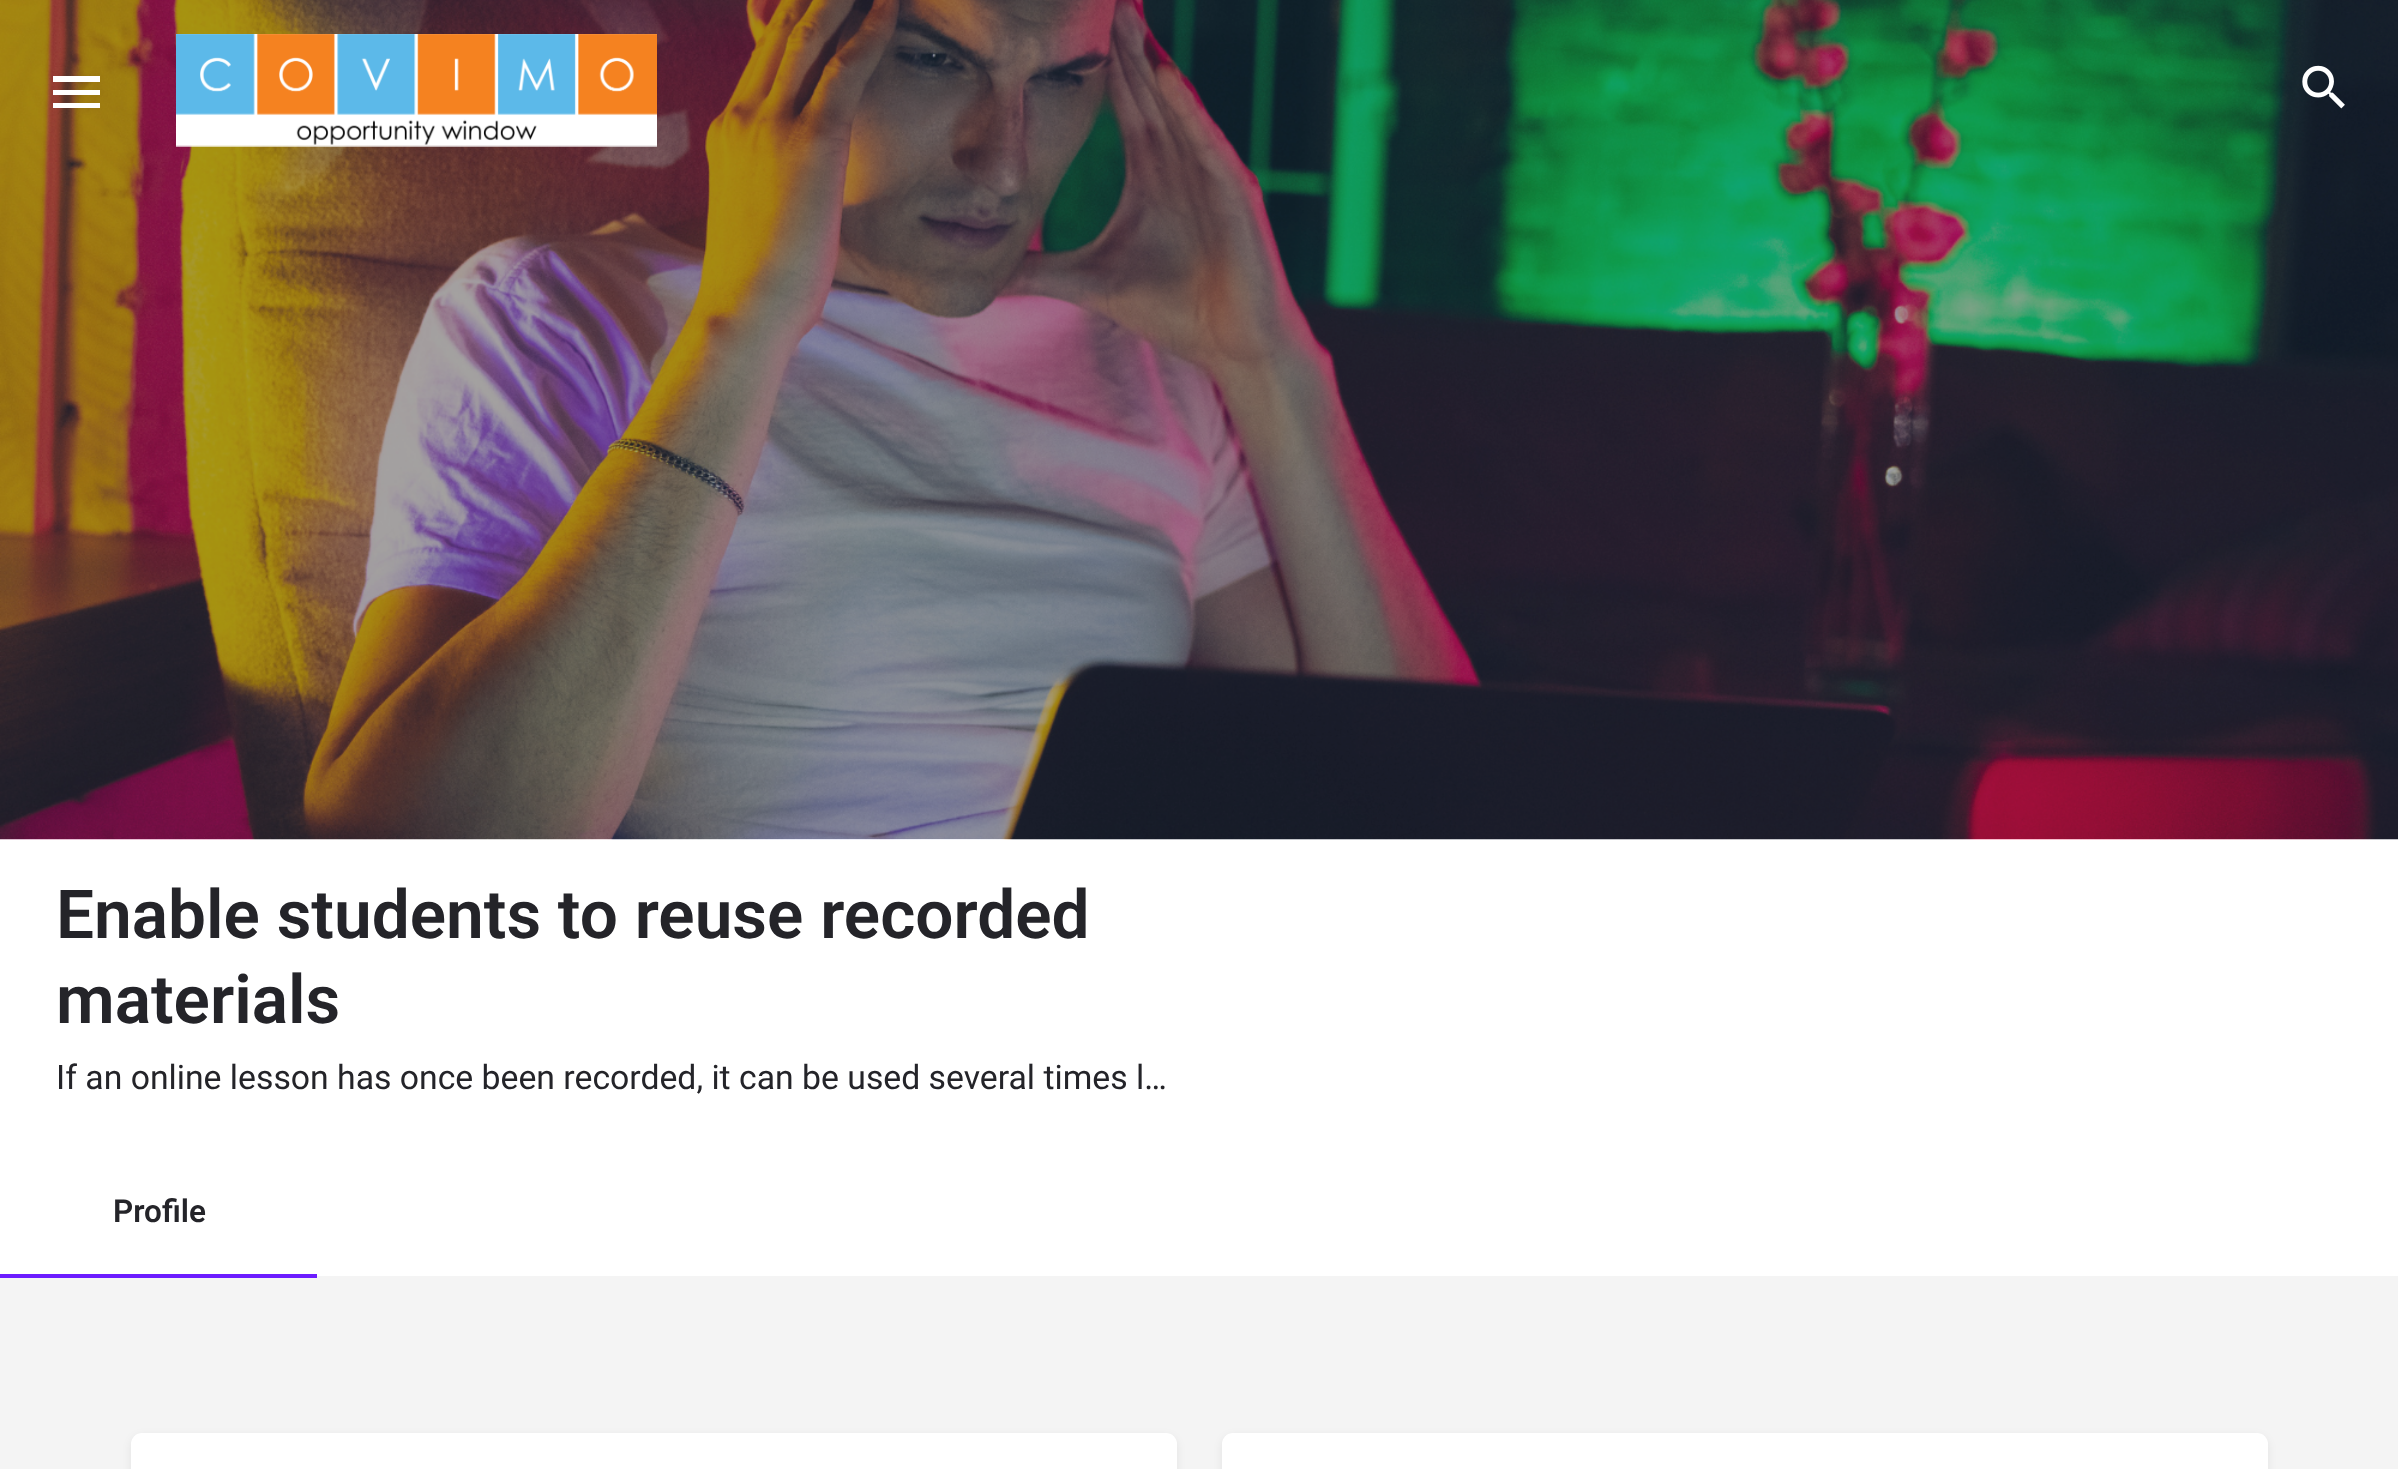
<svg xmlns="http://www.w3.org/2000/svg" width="2398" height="1469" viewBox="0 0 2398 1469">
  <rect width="100%" height="100%" fill="rgb(244,244,244)"/>
  <rect x="0" y="839" width="2398" height="437" fill="rgb(255,255,255)"/>
  <image x="0" y="0" width="2398" height="840" href="pic3.png"/>
  <path d="M53 76H100V82H53ZM53 95V90H100V95ZM53 108V103H100V108Z" fill="rgb(255,255,255)"/>
  <image x="176" y="34" width="481" height="113" href="pic1.png"/>
  <image x="2302" y="65" width="43" height="44" href="pic2.png"/>
  <g font-family="Roboto" font-size="67.5" font-weight="600" fill="rgb(36,36,41)">
    <text>
      <tspan x="56" y="938">Enable students to reuse recorded</tspan>
      <tspan x="56" y="1023">materials</tspan>
    </text>
  </g>
  <text x="56" y="1089" font-family="Roboto" font-size="33.75" fill="rgb(36,36,41)">If an online lesson has once been recorded, it can be used several times l…</text>
  <text x="113" y="1222" font-family="Roboto" font-size="31.5" font-weight="600" fill="rgb(36,36,41)">Profile</text>
  <rect x="0" y="1274" width="317" height="4" fill="rgb(108,28,255)"/>
  <rect x="131" y="1436" width="1046" height="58" rx="11" fill="rgba(0,0,0,0.07)" filter="blur(4.5px)"/>
  <rect x="131" y="1433" width="1046" height="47" rx="11" fill="rgb(255,255,255)"/>
  <rect x="1222" y="1436" width="1046" height="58" rx="11" fill="rgba(0,0,0,0.07)" filter="blur(4.5px)"/>
  <rect x="1222" y="1433" width="1046" height="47" rx="11" fill="rgb(255,255,255)"/>
</svg>
